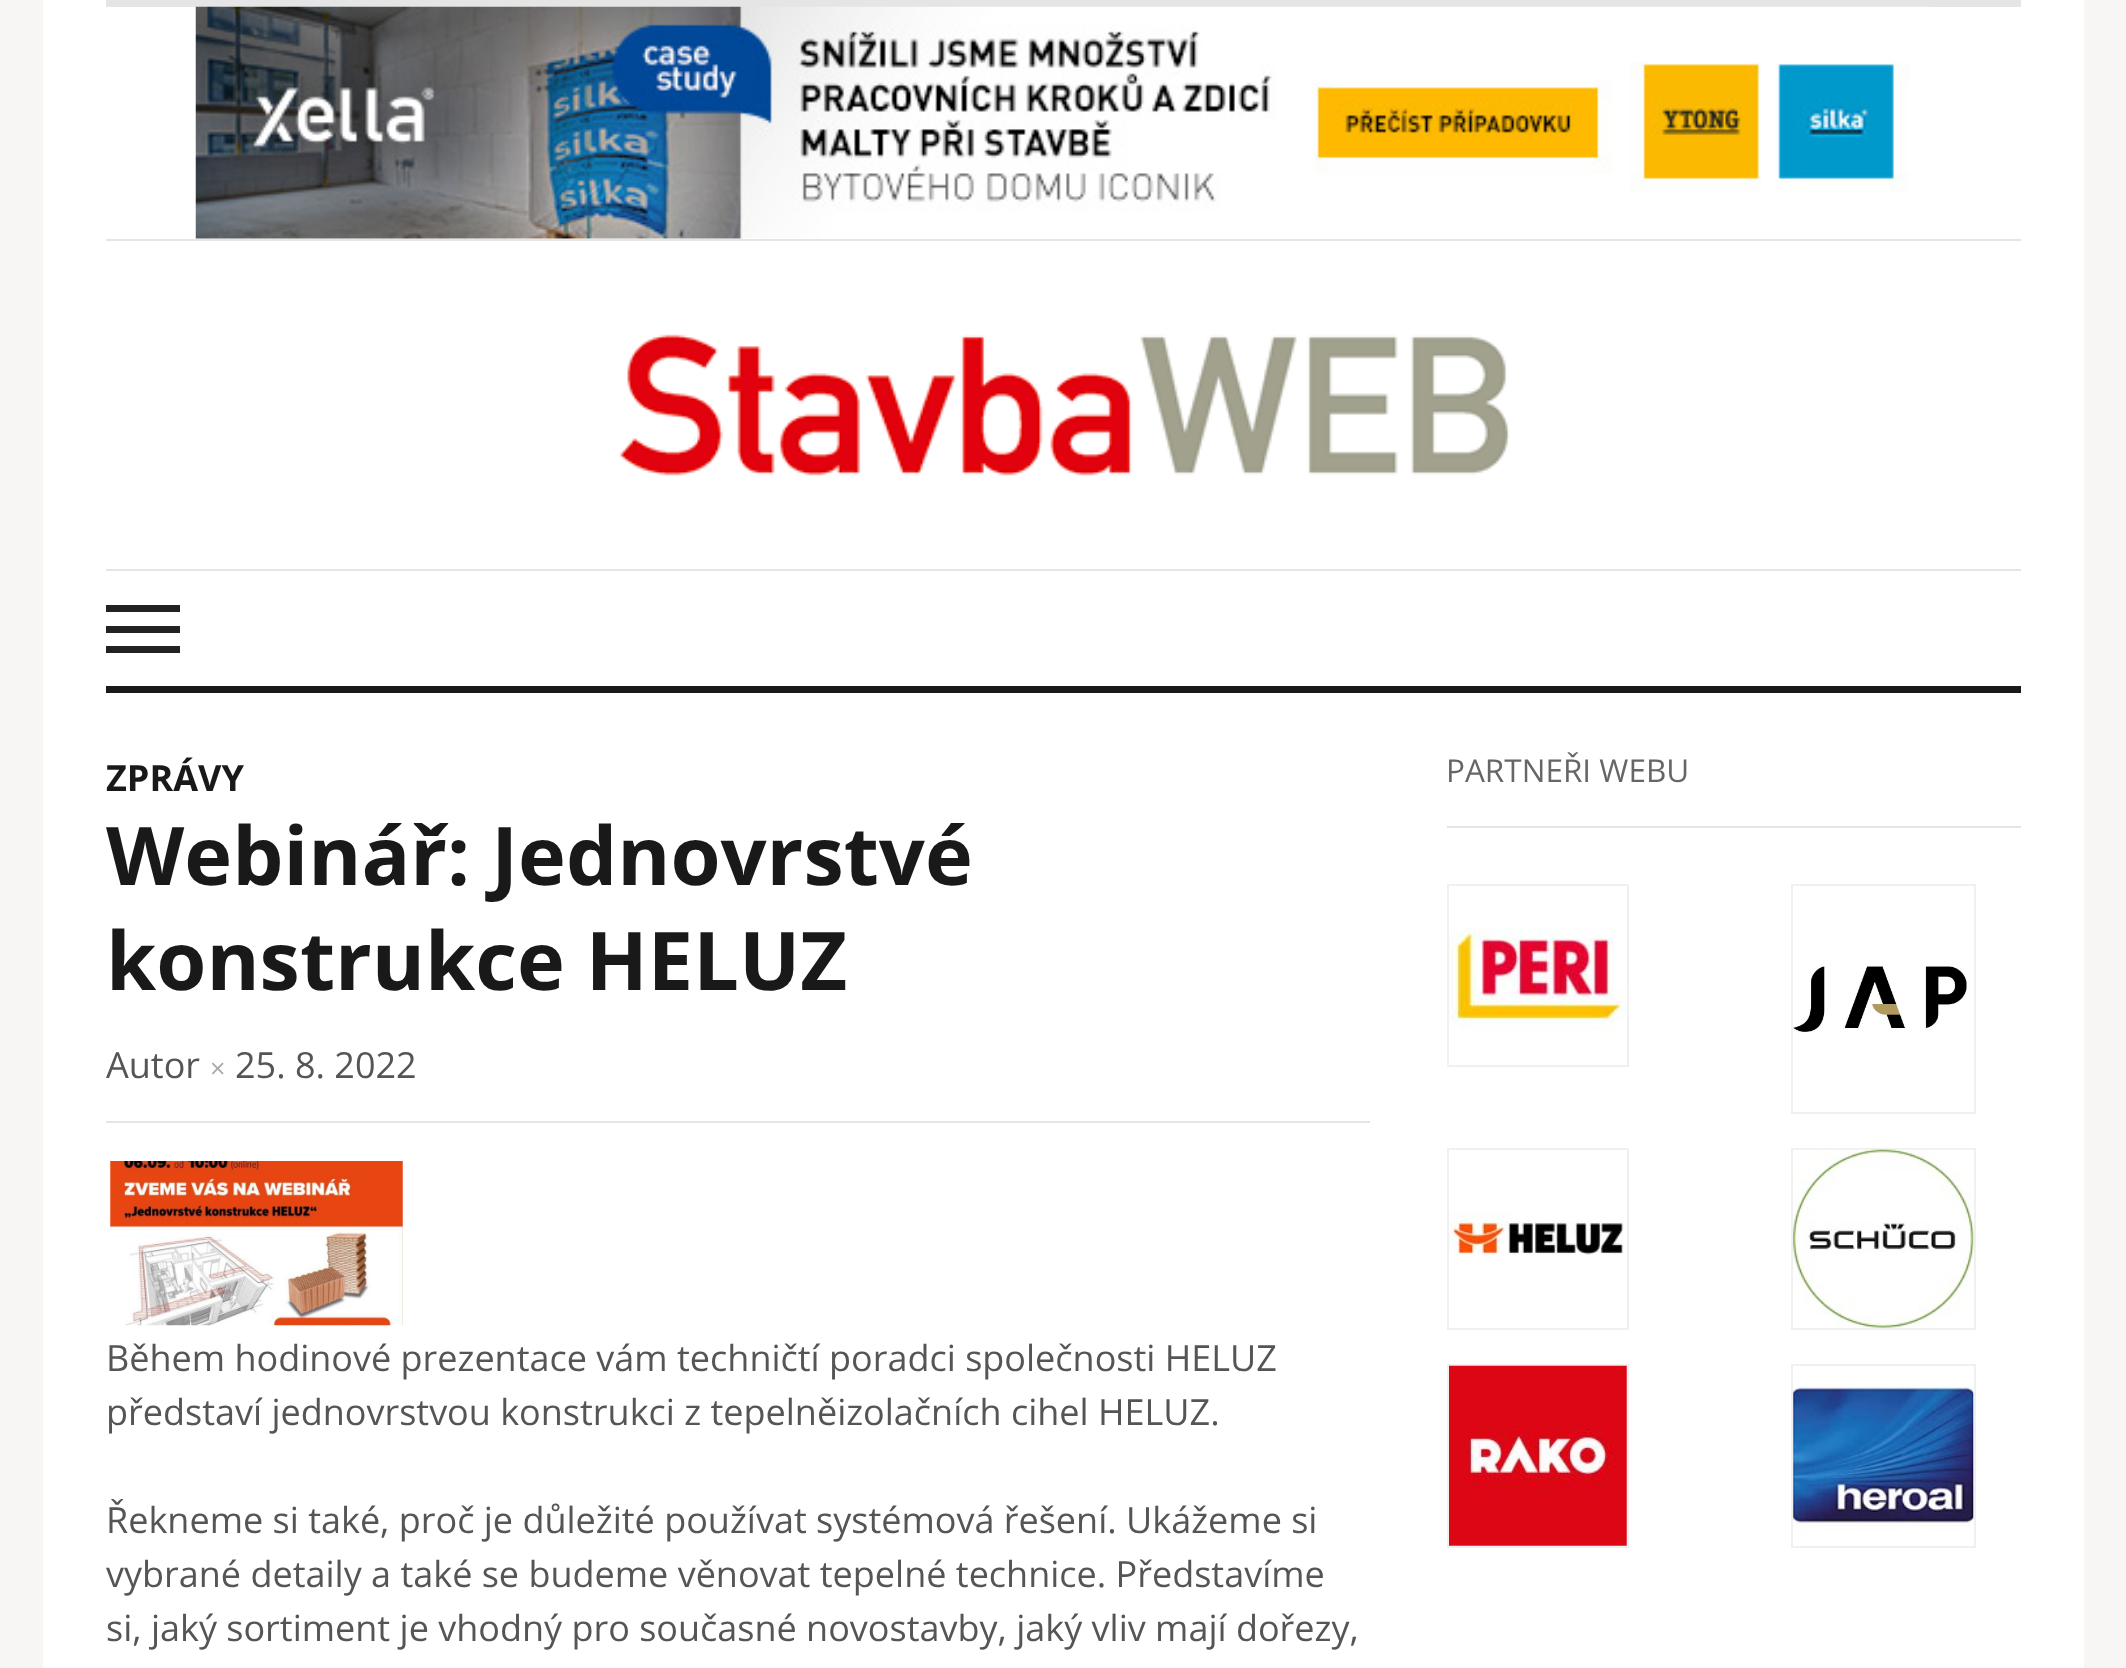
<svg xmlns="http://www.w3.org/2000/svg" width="2126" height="1668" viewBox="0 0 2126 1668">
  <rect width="100%" height="100%" fill="rgb(247,246,244)"/>
  <rect x="43" y="0" width="2041" height="1668" fill="rgb(255,255,255)"/>
  <rect x="106" y="0" width="1915" height="7" fill="rgb(229,229,229)"/>
  <rect x="106" y="239" width="1915" height="2" fill="rgb(229,229,229)"/>
  <image x="195" y="6" width="1735" height="233" href="pic1.png"/>
  <image x="619" y="334" width="891" height="142" href="pic2.png"/>
  <rect x="106" y="569" width="1915" height="2" fill="rgb(229,229,229)"/>
  <rect x="106" y="686" width="1915" height="7" fill="rgb(25,25,25)"/>
  <rect x="106" y="605" width="74" height="7" fill="rgb(34,34,34)"/>
  <rect x="106" y="626" width="74" height="7" fill="rgb(34,34,34)"/>
  <rect x="106" y="646" width="74" height="7" fill="rgb(34,34,34)"/>
  <text x="106" y="791" font-family="Open Sans" font-size="36" font-weight="bold" fill="rgb(25,25,25)">ZPRÁVY</text>
  <g font-family="Open Sans" font-size="81" font-weight="bold" fill="rgb(25,25,25)">
    <text>
      <tspan x="106" y="885">Webinář: Jednovrstvé</tspan>
      <tspan x="106" y="990">konstrukce HELUZ</tspan>
    </text>
  </g>
  <rect x="106" y="1121" width="1264" height="2" fill="rgb(229,229,229)"/>
  <text x="106" y="1078" font-family="Open Sans" font-size="36" fill="rgb(85,85,85)">Autor</text>
  <text x="210" y="1078" font-family="Open Sans" font-size="27" fill="rgb(170,170,170)">×</text>
  <text x="235" y="1078" font-family="Open Sans" font-size="36" fill="rgb(85,85,85)">25. 8. 2022</text>
  <image x="110" y="1161" width="293" height="165" href="pic3.png"/>
  <g font-family="Open Sans" font-size="36" fill="rgb(85,85,85)">
    <text>
      <tspan x="106" y="1371">Během hodinové prezentace vám techničtí poradci společnosti HELUZ</tspan>
      <tspan x="106" y="1425">představí jednovrstvou konstrukci z tepelněizolačních cihel HELUZ.</tspan>
    </text>
    <text>
      <tspan x="106" y="1533">Řekneme si také, proč je důležité používat systémová řešení. Ukážeme si</tspan>
      <tspan x="106" y="1587">vybrané detaily a také se budeme věnovat tepelné technice. Představíme</tspan>
      <tspan x="106" y="1641">si, jaký sortiment je vhodný pro současné novostavby, jaký vliv mají dořezy,</tspan>
    </text>
  </g>
  <rect x="1447" y="826" width="574" height="2" fill="rgb(229,229,229)"/>
  <text x="1446" y="782" font-family="Open Sans" font-size="31.5" fill="rgb(102,102,102)">PARTNEŘI WEBU</text>
  <rect x="1448" y="885" width="180" height="181" fill="none" stroke="rgb(240,240,240)" stroke-width="2"/>
  <image x="1449" y="927" width="178" height="105" href="pic4.png"/>
  <rect x="1792" y="885" width="183" height="228" fill="none" stroke="rgb(240,240,240)" stroke-width="2"/>
  <image x="1793" y="966" width="174" height="66" href="pic5.png"/>
  <rect x="1448" y="1149" width="180" height="180" fill="none" stroke="rgb(240,240,240)" stroke-width="2"/>
  <image x="1449" y="1211" width="175" height="44" href="pic6.png"/>
  <rect x="1792" y="1149" width="183" height="180" fill="none" stroke="rgb(240,240,240)" stroke-width="2"/>
  <image x="1793" y="1149" width="181" height="179" href="pic7.png"/>
  <rect x="1448" y="1365" width="180" height="182" fill="none" stroke="rgb(240,240,240)" stroke-width="2"/>
  <image x="1449" y="1365" width="178" height="181" href="pic8.png"/>
  <rect x="1792" y="1365" width="183" height="182" fill="none" stroke="rgb(240,240,240)" stroke-width="2"/>
  <image x="1793" y="1386" width="181" height="147" href="pic9.png"/>
</svg>
